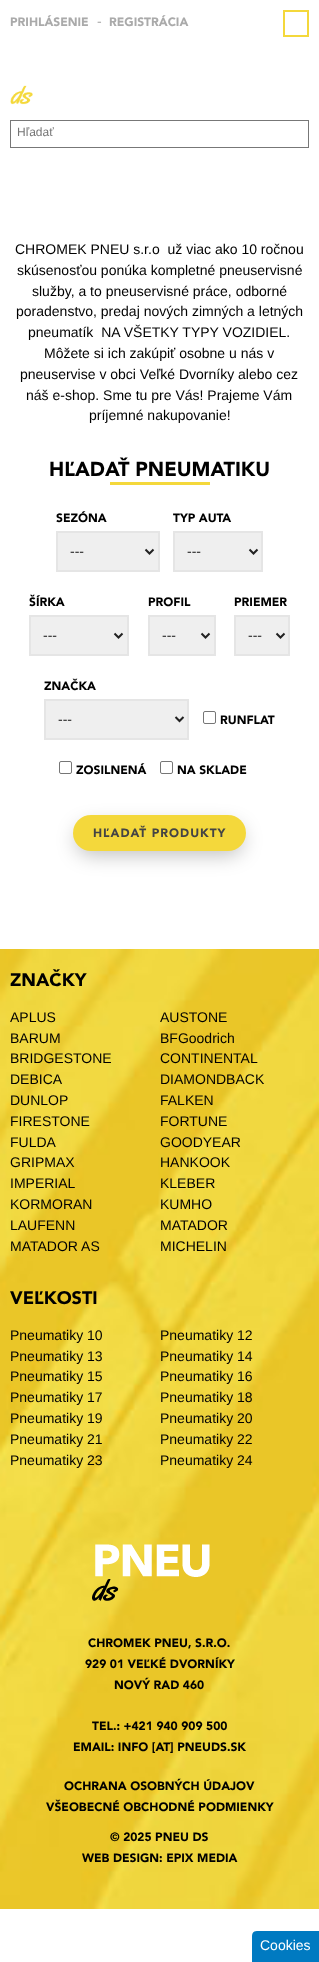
<svg xmlns="http://www.w3.org/2000/svg" width="319" height="1962" viewBox="0 0 319 1962">
  <rect width="100%" height="100%" fill="rgb(255,255,255)"/>
  <text x="10" y="26" font-family="Avenir" font-size="12" font-weight="900" fill="rgb(170,170,170)">PRIHLÁSENIE</text>
  <text x="97" y="26" font-family="Arimo" font-size="14" fill="rgb(170,170,170)">-</text>
  <text x="109" y="26" font-family="Avenir" font-size="12" font-weight="900" fill="rgb(170,170,170)">REGISTRÁCIA</text>
  <rect x="284" y="11" width="24" height="25" fill="none" stroke="rgb(244,216,59)" stroke-width="2"/>
  <rect x="10.5" y="120.5" width="298" height="27" fill="none" stroke="rgb(119,119,119)"/>
  <text x="17" y="136" font-family="Arimo" font-size="12" fill="rgb(117,117,117)">Hľadať</text>
  <image x="10" y="85" width="23" height="20" href="pic1.png"/>
  <g font-family="Arimo" font-size="14" fill="rgb(0,0,0)">
    <text x="15" y="254" xml:space="preserve">CHROMEK PNEU s.r.o  už viac ako 10 ročnou</text>
    <text x="17" y="275">skúsenosťou ponúka kompletné pneuservisné</text>
    <text x="32" y="296">služby, a to pneuservisné práce, odborné</text>
    <text x="16" y="316">poradenstvo, predaj nových zimných a letných</text>
    <text x="28" y="337" xml:space="preserve">pneumatík  NA VŠETKY TYPY VOZIDIEL.</text>
    <text x="44" y="358">Môžete si ich zakúpiť osobne u nás v</text>
    <text x="20" y="379">pneuservise v obci Veľké Dvorníky alebo cez</text>
    <text x="26" y="400">náš e-shop. Sme tu pre Vás! Prajeme Vám</text>
    <text x="89" y="420">príjemné nakupovanie!</text>
  </g>
  <text x="49" y="476" font-family="Avenir" font-size="20" font-weight="900" fill="rgb(0,0,0)">HĽADAŤ PNEUMATIKU</text>
  <rect x="110" y="482" width="100" height="3" fill="rgb(244,216,59)"/>
  <text x="56" y="522" font-family="Avenir" font-size="12" font-weight="900" fill="rgb(0,0,0)">SEZÓNA</text>
  <rect x="57" y="532" width="102" height="39" fill="rgb(239,239,239)" stroke="rgb(229,229,229)" stroke-width="2"/>
  <path d="M145.5 549.5L149.5 553.5L153.5 549.5" fill="none" stroke="rgb(34,34,34)" stroke-width="2"/>
  <text x="70" y="556" font-family="Arimo" font-size="14" fill="rgb(34,34,34)">---</text>
  <text x="173" y="522" font-family="Avenir" font-size="12" font-weight="900" fill="rgb(0,0,0)">TYP AUTA</text>
  <rect x="174" y="532" width="88" height="39" fill="rgb(239,239,239)" stroke="rgb(229,229,229)" stroke-width="2"/>
  <path d="M249.5 549.5L253.5 553.5L257.5 549.5" fill="none" stroke="rgb(34,34,34)" stroke-width="2"/>
  <text x="187" y="556" font-family="Arimo" font-size="14" fill="rgb(34,34,34)">---</text>
  <text x="29" y="606" font-family="Avenir" font-size="12" font-weight="900" fill="rgb(0,0,0)">ŠÍRKA</text>
  <rect x="30" y="616" width="98" height="39" fill="rgb(239,239,239)" stroke="rgb(229,229,229)" stroke-width="2"/>
  <path d="M114.5 633.5L118.5 637.5L122.5 633.5" fill="none" stroke="rgb(34,34,34)" stroke-width="2"/>
  <text x="43" y="640" font-family="Arimo" font-size="14" fill="rgb(34,34,34)">---</text>
  <text x="148" y="606" font-family="Avenir" font-size="12" font-weight="900" fill="rgb(0,0,0)">PROFIL</text>
  <rect x="149" y="616" width="66" height="39" fill="rgb(239,239,239)" stroke="rgb(229,229,229)" stroke-width="2"/>
  <path d="M201.5 633.5L205.5 637.5L209.5 633.5" fill="none" stroke="rgb(34,34,34)" stroke-width="2"/>
  <text x="162" y="640" font-family="Arimo" font-size="14" fill="rgb(34,34,34)">---</text>
  <text x="234" y="606" font-family="Avenir" font-size="12" font-weight="900" fill="rgb(0,0,0)">PRIEMER</text>
  <rect x="235" y="616" width="54" height="39" fill="rgb(239,239,239)" stroke="rgb(229,229,229)" stroke-width="2"/>
  <path d="M276.5 633.5L280.5 637.5L284.5 633.5" fill="none" stroke="rgb(34,34,34)" stroke-width="2"/>
  <text x="248" y="640" font-family="Arimo" font-size="14" fill="rgb(34,34,34)">---</text>
  <text x="44" y="690" font-family="Avenir" font-size="12" font-weight="900" fill="rgb(0,0,0)">ZNAČKA</text>
  <rect x="45" y="700" width="143" height="39" fill="rgb(239,239,239)" stroke="rgb(229,229,229)" stroke-width="2"/>
  <path d="M175.5 717L179.5 721L183.5 717" fill="none" stroke="rgb(34,34,34)" stroke-width="2"/>
  <text x="58" y="724" font-family="Arimo" font-size="14" fill="rgb(34,34,34)">---</text>
  <rect x="203.5" y="711.5" width="12" height="12" rx="1.5" fill="none" stroke="rgb(118,118,118)"/>
  <text x="220" y="724" font-family="Avenir" font-size="12" font-weight="900" fill="rgb(0,0,0)">RUNFLAT</text>
  <rect x="59.5" y="761.5" width="12" height="12" rx="1.5" fill="none" stroke="rgb(118,118,118)"/>
  <text x="76" y="774" font-family="Avenir" font-size="12" font-weight="900" fill="rgb(0,0,0)">ZOSILNENÁ</text>
  <rect x="160.5" y="761.5" width="12" height="12" rx="1.5" fill="none" stroke="rgb(118,118,118)"/>
  <text x="177" y="774" font-family="Avenir" font-size="12" font-weight="900" fill="rgb(0,0,0)">NA SKLADE</text>
  <rect x="76" y="825" width="167" height="30" rx="15" fill="rgba(0,0,0,0.25)" filter="blur(10px)"/>
  <rect x="73" y="815" width="173" height="36" rx="18" fill="rgb(244,216,59)"/>
  <text x="93" y="837" font-family="Avenir" font-size="12" font-weight="900" letter-spacing="1" fill="rgb(68,68,68)">HĽADAŤ PRODUKTY</text>
  <path d="M257 1931H319V1962H252V1936C252 1933 254 1931 257 1931Z" fill="rgb(0,122,193)"/>
  <text x="260" y="1950" font-family="Arimo" font-size="14" fill="rgb(255,255,255)">Cookies</text>
  <image x="0" y="949" width="319" height="960" href="pic2.png"/>
  <text x="10" y="986" font-family="Avenir" font-size="18" font-weight="900" fill="rgb(0,0,0)">ZNAČKY</text>
  <g font-family="Arimo" font-size="14" fill="rgb(0,0,0)">
    <text x="10" y="1022">APLUS</text>
    <text x="160" y="1022">AUSTONE</text>
    <text x="10" y="1043">BARUM</text>
    <text x="160" y="1043">BFGoodrich</text>
    <text x="10" y="1063">BRIDGESTONE</text>
    <text x="160" y="1063">CONTINENTAL</text>
    <text x="10" y="1084">DEBICA</text>
    <text x="160" y="1084">DIAMONDBACK</text>
    <text x="10" y="1105">DUNLOP</text>
    <text x="160" y="1105">FALKEN</text>
    <text x="10" y="1126">FIRESTONE</text>
    <text x="160" y="1126">FORTUNE</text>
    <text x="10" y="1147">FULDA</text>
    <text x="160" y="1147">GOODYEAR</text>
    <text x="10" y="1167">GRIPMAX</text>
    <text x="160" y="1167">HANKOOK</text>
    <text x="10" y="1188">IMPERIAL</text>
    <text x="160" y="1188">KLEBER</text>
    <text x="10" y="1209">KORMORAN</text>
    <text x="160" y="1209">KUMHO</text>
    <text x="10" y="1230">LAUFENN</text>
    <text x="160" y="1230">MATADOR</text>
    <text x="10" y="1251">MATADOR AS</text>
    <text x="160" y="1251">MICHELIN</text>
  </g>
  <text x="10" y="1304" font-family="Avenir" font-size="18" font-weight="900" fill="rgb(0,0,0)">VEĽKOSTI</text>
  <g font-family="Arimo" font-size="14" fill="rgb(0,0,0)">
    <text x="10" y="1340">Pneumatiky 10</text>
    <text x="160" y="1340">Pneumatiky 12</text>
    <text x="10" y="1361">Pneumatiky 13</text>
    <text x="160" y="1361">Pneumatiky 14</text>
    <text x="10" y="1381">Pneumatiky 15</text>
    <text x="160" y="1381">Pneumatiky 16</text>
    <text x="10" y="1402">Pneumatiky 17</text>
    <text x="160" y="1402">Pneumatiky 18</text>
    <text x="10" y="1423">Pneumatiky 19</text>
    <text x="160" y="1423">Pneumatiky 20</text>
    <text x="10" y="1444">Pneumatiky 21</text>
    <text x="160" y="1444">Pneumatiky 22</text>
    <text x="10" y="1465">Pneumatiky 23</text>
    <text x="160" y="1465">Pneumatiky 24</text>
  </g>
  <image x="92" y="1544" width="118" height="57" href="pic3.png"/>
  <g font-family="Avenir" font-size="12" font-weight="900" fill="rgb(0,0,0)">
    <text x="88" y="1647">CHROMEK PNEU, S.R.O.</text>
    <text x="85" y="1668">929 01 VEĽKÉ DVORNÍKY</text>
    <text x="114" y="1689">NOVÝ RAD 460</text>
    <text x="92" y="1730">TEL.: +421 940 909 500</text>
    <text x="73" y="1751">EMAIL: INFO [AT] PNEUDS.SK</text>
    <text x="64" y="1790">OCHRANA OSOBNÝCH ÚDAJOV</text>
    <text x="46" y="1811">VŠEOBECNÉ OBCHODNÉ PODMIENKY</text>
    <text x="110" y="1841">© 2025 PNEU DS</text>
    <text x="82" y="1862">WEB DESIGN: EPIX MEDIA</text>
  </g>
</svg>
